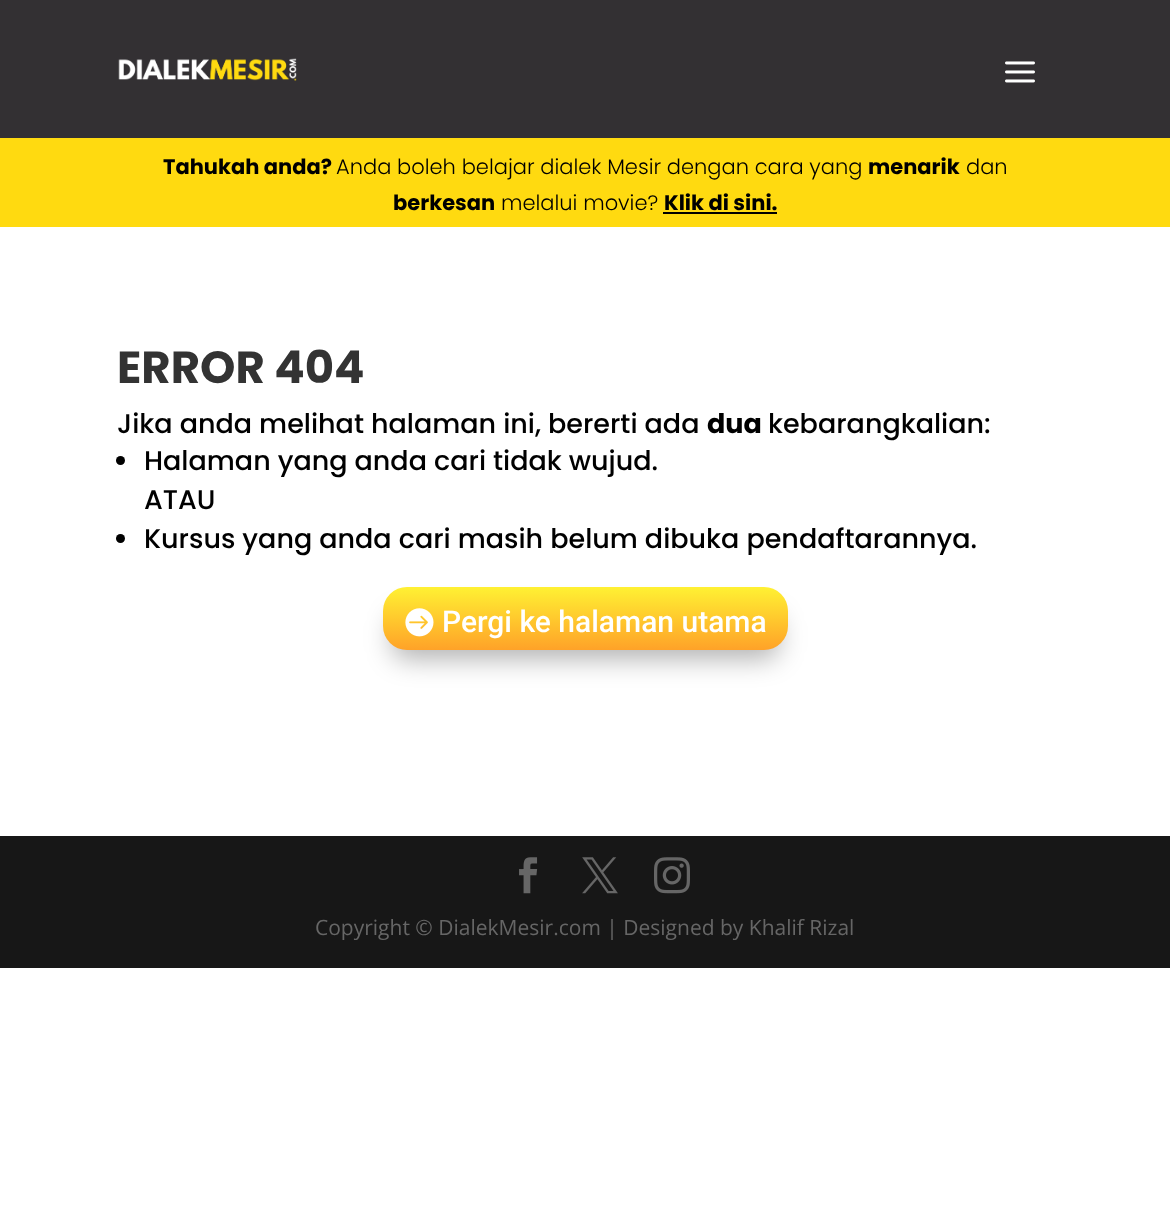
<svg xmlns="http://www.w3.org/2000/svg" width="1170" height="1215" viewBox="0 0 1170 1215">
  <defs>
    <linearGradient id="g1" gradientUnits="userSpaceOnUse" x1="585" y1="587" x2="585" y2="650"><stop offset="0" stop-color="rgb(255,241,51)"/><stop offset="1" stop-color="rgb(255,162,40)"/></linearGradient>
  </defs>
  <rect width="100%" height="100%" fill="rgb(255,255,255)"/>
  <rect x="0" y="0" width="1170" height="138" fill="rgb(51,48,51)"/>
  <image x="118" y="58" width="179" height="23" href="pic1.png"/>
  <image x="1005" y="61" width="30" height="22" href="pic2.png"/>
  <rect x="0" y="138" width="1170" height="89" fill="rgb(255,218,16)"/>
  <text x="163" y="174" font-family="Poppins" font-size="21" font-weight="bold" fill="rgb(0,0,0)">Tahukah anda?</text>
  <text x="336" y="174" font-family="Poppins" font-size="21" font-weight="300" fill="rgb(0,0,0)">Anda boleh belajar dialek Mesir dengan cara yang</text>
  <text x="868" y="174" font-family="Poppins" font-size="21" font-weight="bold" fill="rgb(0,0,0)">menarik</text>
  <text x="966" y="174" font-family="Poppins" font-size="21" font-weight="300" fill="rgb(0,0,0)">dan</text>
  <text x="393" y="210" font-family="Poppins" font-size="21" font-weight="bold" fill="rgb(0,0,0)">berkesan</text>
  <text x="501" y="210" font-family="Poppins" font-size="21" font-weight="300" fill="rgb(0,0,0)">melalui movie?</text>
  <text x="664" y="210" font-family="Poppins" font-size="21" font-weight="bold" fill="rgb(0,0,0)">Klik di sini.</text>
  <rect x="663" y="212" width="114" height="2" fill="rgb(0,0,0)"/>
  <text x="117" y="383" font-family="Poppins" font-size="45" font-weight="bold" fill="rgb(51,51,51)">ERROR 404</text>
  <text x="117" y="433" font-family="Poppins" font-size="27" font-weight="500" fill="rgb(0,0,0)">Jika anda melihat halaman ini, bererti ada</text>
  <text x="707" y="433" font-family="Poppins" font-size="27" font-weight="bold" fill="rgb(0,0,0)">dua</text>
  <text x="768" y="433" font-family="Poppins" font-size="27" font-weight="500" fill="rgb(0,0,0)">kebarangkalian:</text>
  <circle cx="120.5" cy="460.5" r="4.5" fill="rgb(0,0,0)"/>
  <g font-family="Poppins" font-size="27" font-weight="500" fill="rgb(0,0,0)">
    <text>
      <tspan x="144" y="470">Halaman yang anda cari tidak wujud.</tspan>
      <tspan x="144" y="509">ATAU</tspan>
    </text>
  </g>
  <circle cx="120.5" cy="538.5" r="4.5" fill="rgb(0,0,0)"/>
  <text x="144" y="548" font-family="Poppins" font-size="27" font-weight="500" fill="rgb(0,0,0)">Kursus yang anda cari masih belum dibuka pendaftarannya.</text>
  <rect x="392" y="614" width="387" height="45" rx="15" fill="rgba(0,0,0,0.3)" filter="blur(13.5px)"/>
  <rect x="383" y="587" width="405" height="63" rx="24" fill="url(#g1)"/>
  <image x="405" y="608" width="29" height="29" href="pic3.png"/>
  <text x="442" y="632" font-family="Roboto" font-size="30" font-weight="500" fill="rgb(255,255,255)">Pergi ke halaman utama</text>
  <rect x="0" y="836" width="1170" height="132" fill="rgb(23,23,23)"/>
  <image x="519" y="857" width="19" height="37" href="pic4.png"/>
  <image x="582" y="857" width="36" height="37" href="pic5.png"/>
  <image x="654" y="857" width="36" height="37" href="pic6.png"/>
  <text x="315" y="935" font-family="Open Sans" font-size="21" fill="rgb(102,102,102)">Copyright © DialekMesir.com | Designed by Khalif Rizal</text>
</svg>
